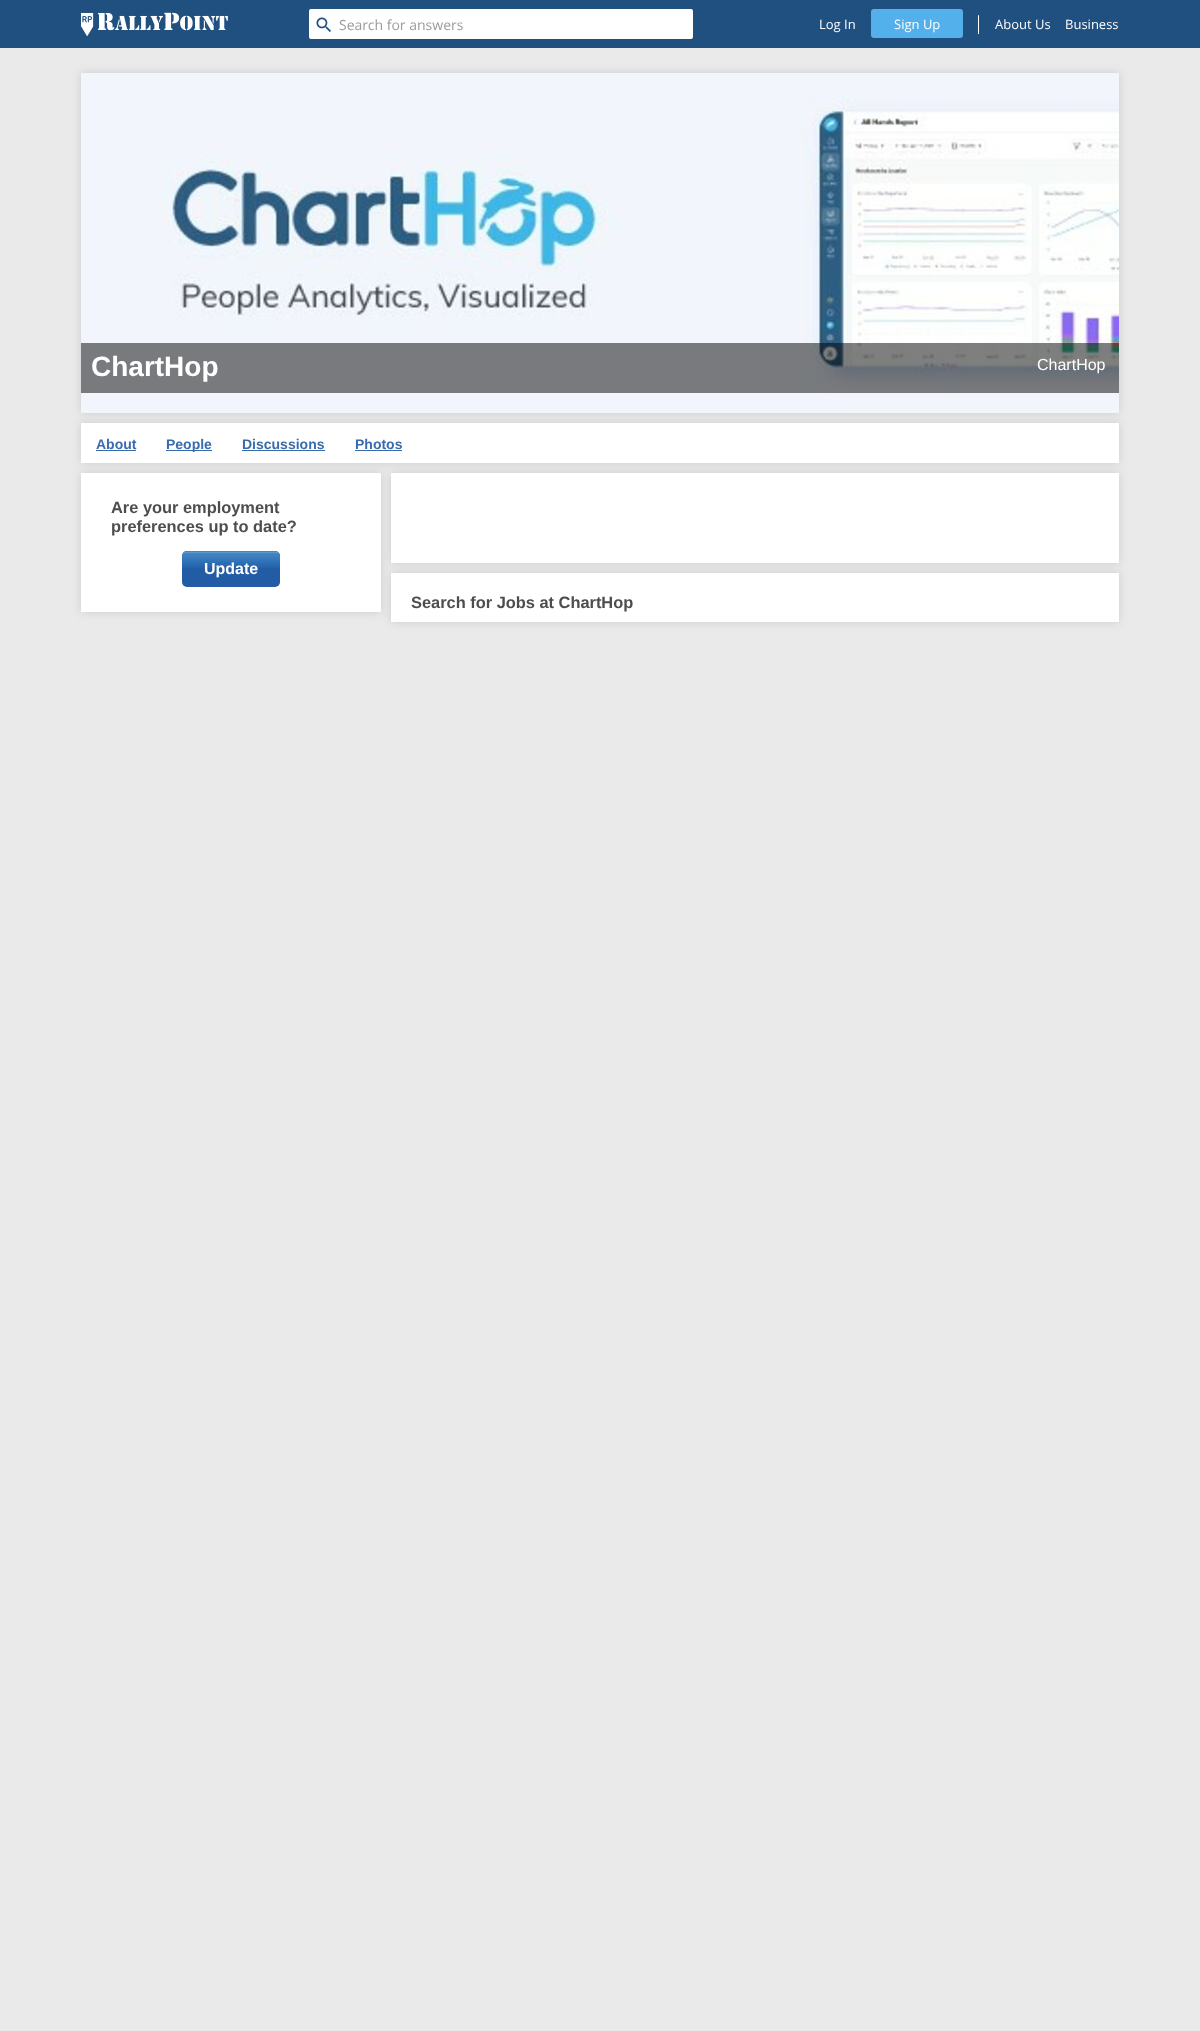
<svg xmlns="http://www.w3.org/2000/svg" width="1200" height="2031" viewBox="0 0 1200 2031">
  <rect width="100%" height="100%" fill="rgb(234,234,234)"/>
  <rect x="0" y="0" width="1200" height="48" fill="rgb(31,80,128)"/>
  <image x="81" y="12" width="147" height="25" href="pic1.png"/>
  <rect x="309" y="9" width="384" height="30" rx="2" fill="rgb(255,255,255)"/>
  <image x="316" y="17" width="15" height="15" href="pic2.png"/>
  <text x="339" y="30" font-family="Open Sans" font-size="14" fill="rgb(155,155,155)">Search for answers</text>
  <text x="819" y="29" font-family="Open Sans" font-size="13" fill="rgb(255,255,255)">Log In</text>
  <rect x="871" y="9" width="92" height="29" rx="3" fill="rgb(83,176,234)"/>
  <text x="894" y="29" font-family="Open Sans" font-size="13" fill="rgb(255,255,255)">Sign Up</text>
  <rect x="978" y="15" width="1" height="19" rx="0.5" fill="rgb(255,255,255)"/>
  <g font-family="Open Sans" font-size="13" fill="rgb(255,255,255)">
    <text x="995" y="29">About Us</text>
    <text x="1065" y="29">Business</text>
  </g>
  <rect x="81" y="423" width="1038" height="40" fill="rgb(204,204,204)" filter="blur(5px)"/>
  <rect x="81" y="423" width="1038" height="40" fill="rgb(255,255,255)"/>
  <rect x="81" y="73" width="1038" height="340" fill="rgb(204,204,204)" filter="blur(5px)"/>
  <image x="81" y="73" width="1038" height="340" href="pic3.png"/>
  <rect x="81" y="343" width="1038" height="50" fill="rgba(0,0,0,0.5)"/>
  <text x="91" y="376" font-family="Liberation Sans" font-size="28" font-weight="bold" fill="rgb(255,255,255)">ChartHop</text>
  <text x="1037" y="370" font-family="Liberation Sans" font-size="16" fill="rgb(255,255,255)">ChartHop</text>
  <text x="96" y="449" font-family="Liberation Sans" font-size="14" font-weight="bold" fill="rgb(56,108,174)">About</text>
  <rect x="96" y="450" width="40" height="1" fill="rgb(56,108,174)"/>
  <rect x="166" y="450" width="46" height="1" fill="rgb(56,108,174)"/>
  <g font-family="Liberation Sans" font-size="14" font-weight="bold" fill="rgb(56,108,174)">
    <text x="166" y="449">People</text>
    <text x="242" y="449">Discussions</text>
  </g>
  <rect x="242" y="450" width="83" height="1" fill="rgb(56,108,174)"/>
  <text x="355" y="449" font-family="Liberation Sans" font-size="14" font-weight="bold" fill="rgb(56,108,174)">Photos</text>
  <rect x="355" y="450" width="47" height="1" fill="rgb(56,108,174)"/>
  <rect x="81" y="473" width="300" height="139" fill="rgb(204,204,204)" filter="blur(5px)"/>
  <rect x="81" y="473" width="300" height="139" fill="rgb(255,255,255)"/>
  <g font-family="Liberation Sans" font-size="16.4" font-weight="bold" fill="rgb(77,77,77)">
    <text>
      <tspan x="111" y="513">Are your employment</tspan>
      <tspan x="111" y="532">preferences up to date?</tspan>
    </text>
  </g>
  <rect x="182" y="551" width="98" height="36" rx="5" fill="rgb(34,92,165)"/>
  <image x="182" y="551" width="98" height="17" href="pic4.png"/>
  <text x="204" y="574" font-family="Liberation Sans" font-size="16" font-weight="bold" fill="rgb(255,255,255)">Update</text>
  <rect x="391" y="573" width="728" height="49" fill="rgb(204,204,204)" filter="blur(5px)"/>
  <rect x="391" y="573" width="728" height="49" fill="rgb(255,255,255)"/>
  <rect x="391" y="473" width="728" height="90" fill="rgb(204,204,204)" filter="blur(5px)"/>
  <rect x="391" y="473" width="728" height="90" fill="rgb(255,255,255)"/>
  <text x="411" y="608" font-family="Liberation Sans" font-size="16.4" font-weight="bold" fill="rgb(77,77,77)">Search for Jobs at ChartHop</text>
</svg>
